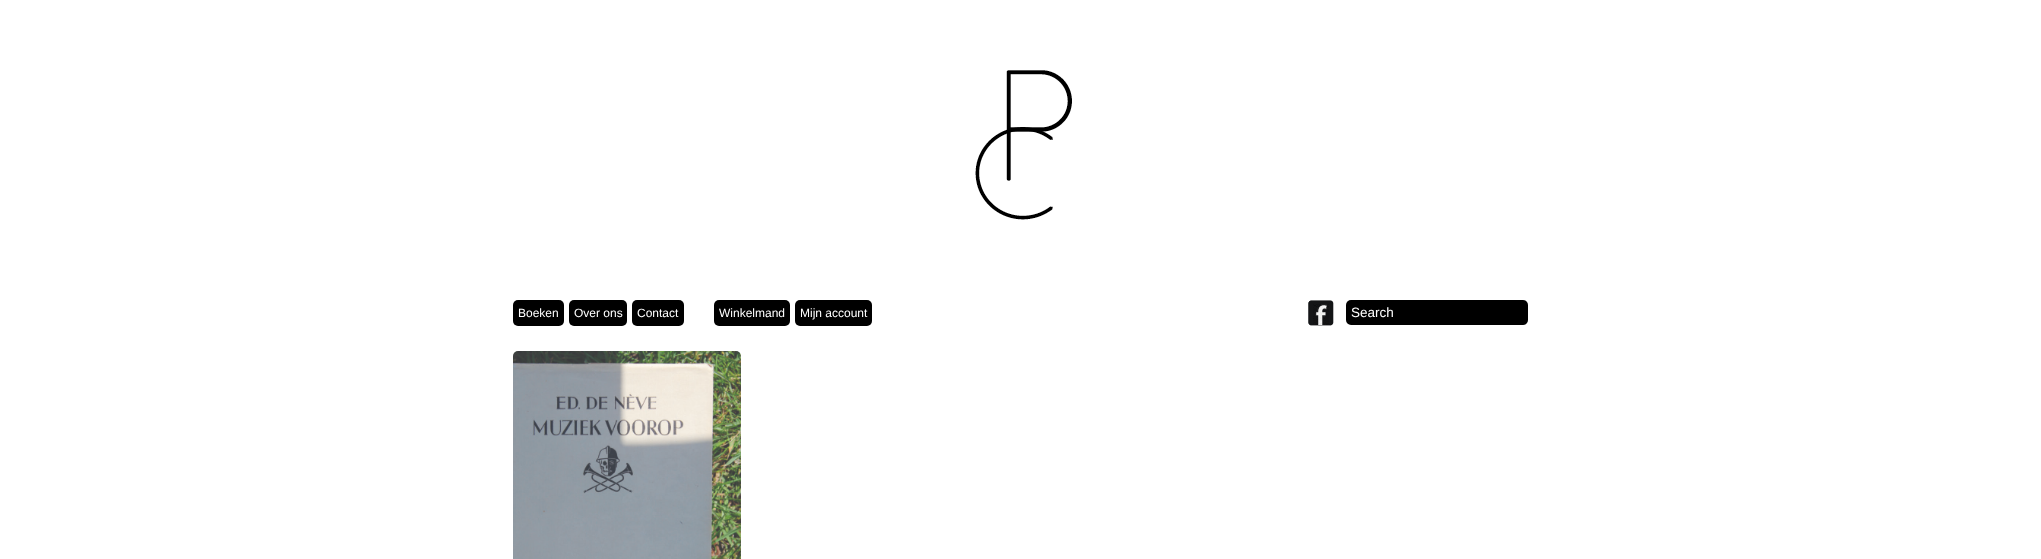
<svg xmlns="http://www.w3.org/2000/svg" width="2041" height="559" viewBox="0 0 2041 559">
  <rect width="100%" height="100%" fill="rgb(255,255,255)"/>
  <image x="975" y="70" width="97" height="150" href="pic1.png"/>
  <rect x="513" y="300" width="51" height="26" rx="5" fill="rgb(0,0,0)"/>
  <text x="518" y="317" font-family="Liberation Sans" font-size="12" fill="rgb(255,255,255)">Boeken</text>
  <rect x="569" y="300" width="58" height="26" rx="5" fill="rgb(0,0,0)"/>
  <text x="574" y="317" font-family="Liberation Sans" font-size="12" fill="rgb(255,255,255)">Over ons</text>
  <rect x="632" y="300" width="52" height="26" rx="5" fill="rgb(0,0,0)"/>
  <text x="637" y="317" font-family="Liberation Sans" font-size="12" fill="rgb(255,255,255)">Contact</text>
  <rect x="714" y="300" width="76" height="26" rx="5" fill="rgb(0,0,0)"/>
  <text x="719" y="317" font-family="Liberation Sans" font-size="12" fill="rgb(255,255,255)">Winkelmand</text>
  <rect x="795" y="300" width="77" height="26" rx="5" fill="rgb(0,0,0)"/>
  <text x="800" y="317" font-family="Liberation Sans" font-size="12" fill="rgb(255,255,255)">Mijn account</text>
  <image x="1308" y="300" width="26" height="26" href="pic2.png"/>
  <rect x="1346" y="300" width="182" height="25" rx="5" fill="rgb(0,0,0)"/>
  <text x="1351" y="317" font-family="Liberation Sans" font-size="13.5" fill="rgb(255,255,255)">Search</text>
  <image x="513" y="351" width="228" height="208" href="pic3.png"/>
</svg>
